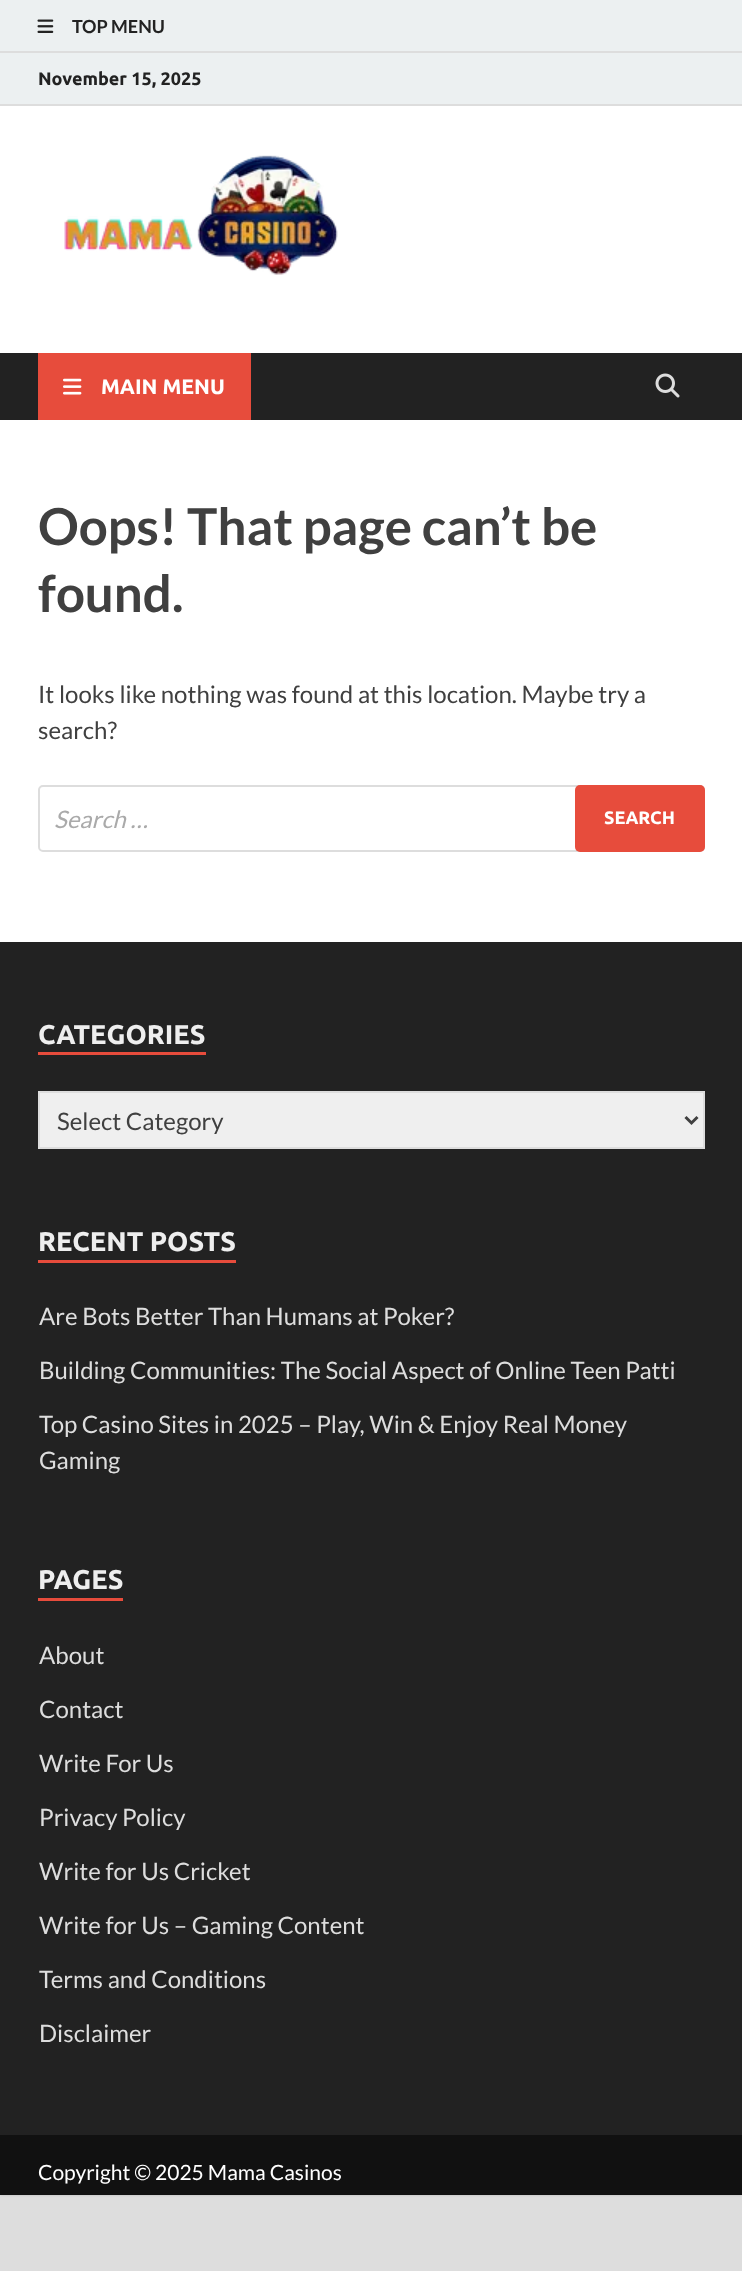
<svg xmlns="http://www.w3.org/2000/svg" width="742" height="2271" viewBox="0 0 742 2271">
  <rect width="100%" height="100%" fill="rgb(221,221,221)"/>
  <rect x="0" y="0" width="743" height="2195" fill="rgb(187,187,187)" filter="blur(1.5px)"/>
  <rect x="0" y="106" width="742" height="836" fill="rgb(255,255,255)"/>
  <rect x="0" y="0" width="742" height="51" fill="rgb(236,240,241)"/>
  <rect x="0" y="51" width="742" height="2" fill="rgb(221,221,221)"/>
  <image x="37" y="19" width="17" height="14" href="pic1.png"/>
  <text x="72" y="33" font-family="Lato" font-size="18" font-weight="bold" fill="rgb(34,34,34)">TOP MENU</text>
  <rect x="0" y="53" width="742" height="51" fill="rgb(236,240,241)"/>
  <rect x="0" y="104" width="742" height="2" fill="rgb(221,221,221)"/>
  <text x="38" y="85" font-family="Ubuntu" font-size="18" font-weight="bold" fill="rgb(34,34,34)">November 15, 2025</text>
  <image x="64" y="155" width="274" height="120" href="pic2.png"/>
  <rect x="0" y="353" width="742" height="67" fill="rgb(34,34,34)"/>
  <rect x="38" y="353" width="213" height="67" fill="rgb(231,76,60)"/>
  <image x="63" y="378" width="19" height="17" href="pic3.png"/>
  <text x="101" y="394" font-family="Ubuntu" font-size="21" font-weight="bold" fill="rgb(255,255,255)">MAIN MENU</text>
  <image x="655" y="373" width="25" height="25" href="pic4.png"/>
  <g font-family="Lato" font-size="51" font-weight="bold" fill="rgb(64,64,64)">
    <text>
      <tspan x="38" y="545">Oops! That page can’t be</tspan>
      <tspan x="38" y="612">found.</tspan>
    </text>
  </g>
  <g font-family="Lato" font-size="24" fill="rgb(64,64,64)">
    <text>
      <tspan x="38" y="703">It looks like nothing was found at this location. Maybe try a</tspan>
      <tspan x="38" y="739">search?</tspan>
    </text>
  </g>
  <rect x="39" y="786" width="665" height="65" rx="4" fill="none" stroke="rgb(221,221,221)" stroke-width="2"/>
  <text x="54" y="828" font-family="Lato" font-size="24" font-style="italic" fill="rgb(170,170,170)">Search …</text>
  <rect x="575" y="785" width="130" height="67" rx="5" fill="rgb(231,76,60)"/>
  <text x="604" y="824" font-family="Ubuntu" font-size="18" font-weight="bold" fill="rgb(255,255,255)">SEARCH</text>
  <rect x="0" y="942" width="742" height="1193" fill="rgb(34,34,34)"/>
  <rect x="38" y="1052" width="168" height="3" fill="rgb(231,76,60)"/>
  <text x="38" y="1044" font-family="Ubuntu" font-size="27" font-weight="bold" fill="rgb(238,238,238)">CATEGORIES</text>
  <rect x="39" y="1092" width="665" height="56" fill="rgb(239,239,239)" stroke="rgb(221,221,221)" stroke-width="2"/>
  <path d="M685.5 1117L691.5 1123L697.5 1117" fill="none" stroke="rgb(64,64,64)" stroke-width="3"/>
  <text x="57" y="1130" font-family="Lato" font-size="24" fill="rgb(64,64,64)">Select Category</text>
  <rect x="38" y="1260" width="198" height="3" fill="rgb(231,76,60)"/>
  <text x="38" y="1251" font-family="Ubuntu" font-size="27" font-weight="bold" fill="rgb(238,238,238)">RECENT POSTS</text>
  <g font-family="Lato" font-size="24" fill="rgb(221,221,221)">
    <text x="39" y="1325">Are Bots Better Than Humans at Poker?</text>
    <text x="39" y="1379">Building Communities: The Social Aspect of Online Teen Patti</text>
    <text>
      <tspan x="39" y="1433">Top Casino Sites in 2025 – Play, Win &amp; Enjoy Real Money</tspan>
      <tspan x="39" y="1469">Gaming</tspan>
    </text>
  </g>
  <rect x="38" y="1598" width="85" height="3" fill="rgb(231,76,60)"/>
  <text x="38" y="1589" font-family="Ubuntu" font-size="27" font-weight="bold" fill="rgb(238,238,238)">PAGES</text>
  <g font-family="Lato" font-size="24" fill="rgb(221,221,221)">
    <text x="39" y="1664">About</text>
    <text x="39" y="1718">Contact</text>
    <text x="39" y="1772">Write For Us</text>
    <text x="39" y="1826">Privacy Policy</text>
    <text x="39" y="1880">Write for Us Cricket</text>
    <text x="39" y="1934">Write for Us – Gaming Content</text>
    <text x="39" y="1988">Terms and Conditions</text>
    <text x="39" y="2042">Disclaimer</text>
  </g>
  <rect x="0" y="2135" width="742" height="60" fill="rgb(17,17,17)"/>
  <text x="38" y="2180" font-family="Lato" font-size="21" fill="rgb(255,255,255)">Copyright © 2025 Mama Casinos</text>
</svg>
